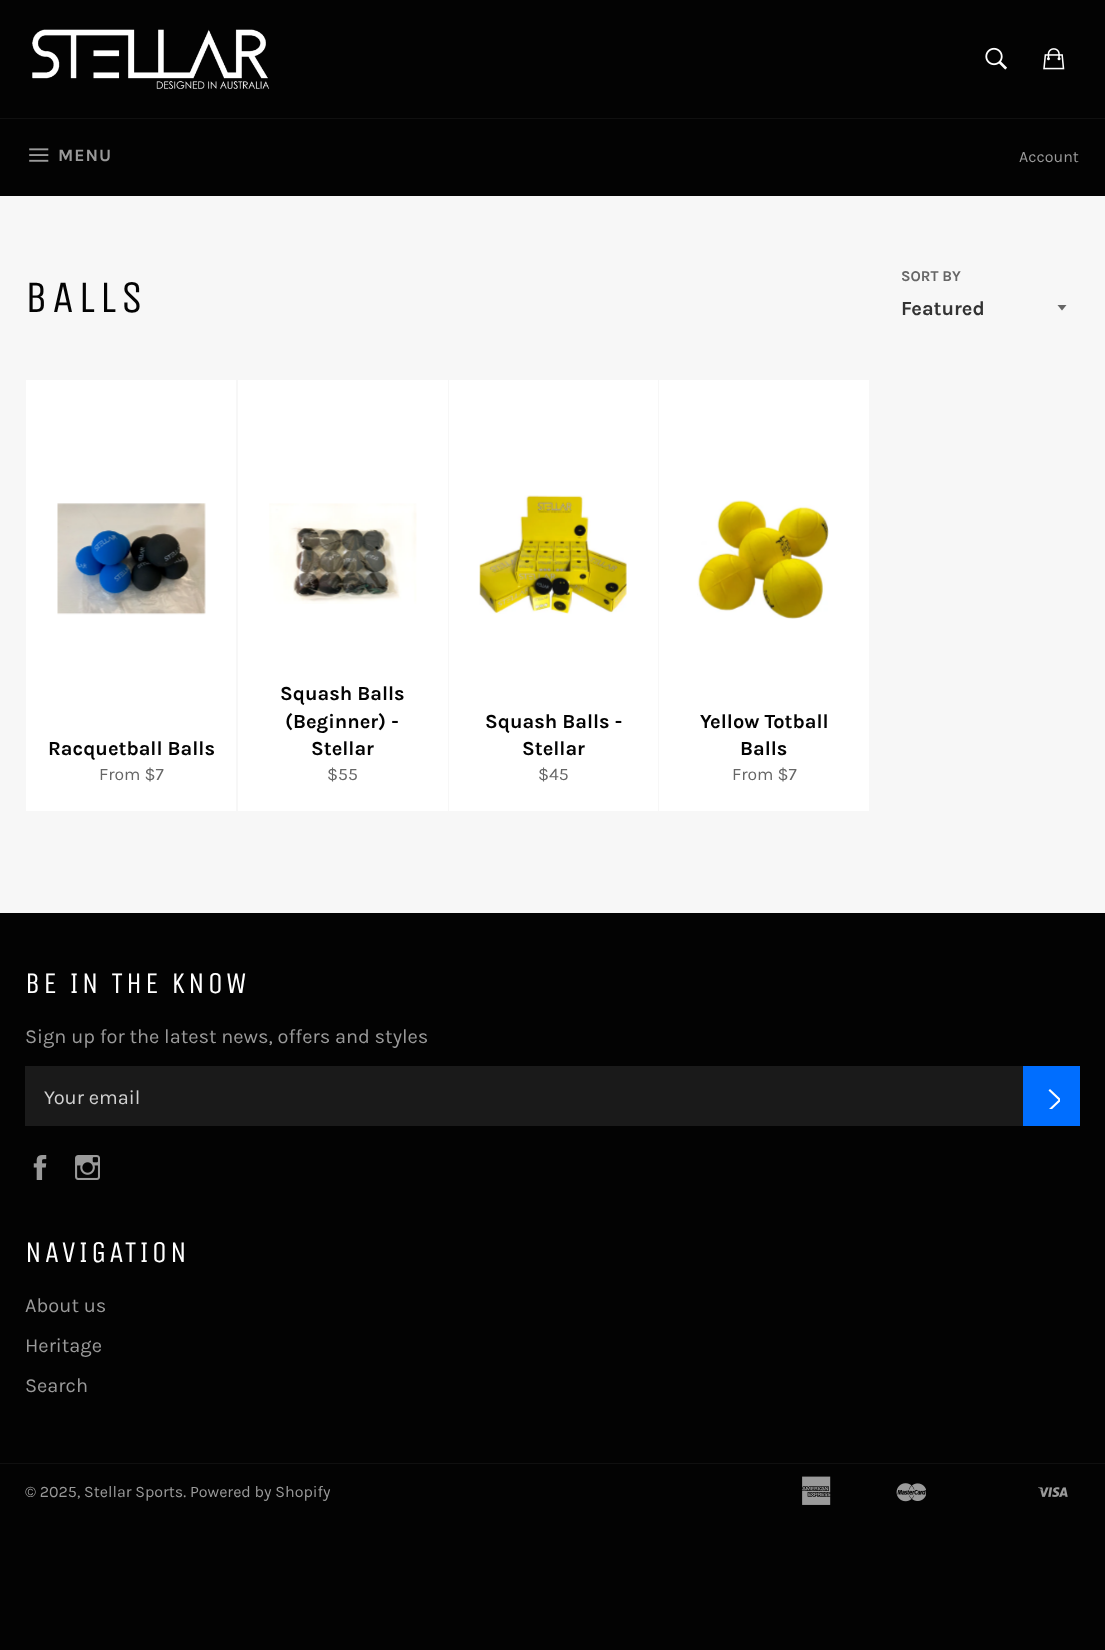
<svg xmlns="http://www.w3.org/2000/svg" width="1105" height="1650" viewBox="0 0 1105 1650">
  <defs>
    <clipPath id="clip1"><rect x="1043" y="1088" width="17" height="21"/></clipPath>
  </defs>
  <rect width="100%" height="100%" fill="rgb(3,3,3)"/>
  <rect x="0" y="196" width="1105" height="717" fill="rgb(247,247,247)"/>
  <image x="32" y="29" width="238" height="60" href="pic1.png"/>
  <image x="985" y="47" width="22" height="23" href="pic2.png"/>
  <image x="1043" y="48" width="22" height="22" href="pic3.png"/>
  <rect x="0" y="118" width="1105" height="1" fill="rgb(16,16,16)"/>
  <image x="29" y="148" width="20" height="14" href="pic4.png"/>
  <text x="58" y="161" font-family="Karla" font-size="17.5" font-weight="bold" letter-spacing="1" fill="rgb(154,154,154)">MENU</text>
  <text x="1019" y="162" font-family="Karla" font-size="16" fill="rgb(154,154,154)">Account</text>
  <text x="25" y="312" font-family="Unica One" font-size="45" letter-spacing="4.5" fill="rgb(3,3,3)">BALLS</text>
  <text x="901" y="281" font-family="Karla" font-size="15" font-weight="bold" fill="rgb(102,102,102)">SORT BY</text>
  <path d="M1057.5 305L1062 310.5L1066.5 305Z" fill="rgb(102,102,102)"/>
  <text x="901" y="315" font-family="Karla" font-size="20" font-weight="bold" fill="rgb(51,51,51)">Featured</text>
  <rect x="26" y="380" width="210" height="431" fill="rgb(255,255,255)"/>
  <image x="57" y="503" width="149" height="112" href="pic5.png"/>
  <text x="48" y="755" font-family="Karla" font-size="20" font-weight="bold" fill="rgb(3,3,3)">Racquetball Balls</text>
  <text x="99" y="780" font-family="Karla" font-size="17.5" fill="rgb(102,102,102)">From $7</text>
  <rect x="238" y="380" width="210" height="431" fill="rgb(255,255,255)"/>
  <image x="269" y="503" width="148" height="101" href="pic6.png"/>
  <g font-family="Karla" font-size="20" font-weight="bold" fill="rgb(3,3,3)">
    <text x="280" y="700">Squash Balls</text>
    <text x="285" y="728">(Beginner) -</text>
    <text x="311" y="755">Stellar</text>
  </g>
  <text x="327" y="780" font-family="Karla" font-size="17.5" fill="rgb(102,102,102)">$55</text>
  <rect x="449" y="380" width="209" height="431" fill="rgb(255,255,255)"/>
  <image x="479" y="495" width="148" height="119" href="pic7.png"/>
  <g font-family="Karla" font-size="20" font-weight="bold" fill="rgb(3,3,3)">
    <text x="485" y="728">Squash Balls -</text>
    <text x="522" y="755">Stellar</text>
  </g>
  <text x="538" y="780" font-family="Karla" font-size="17.5" fill="rgb(102,102,102)">$45</text>
  <rect x="659" y="380" width="210" height="431" fill="rgb(255,255,255)"/>
  <image x="697" y="500" width="132" height="119" href="pic8.png"/>
  <g font-family="Karla" font-size="20" font-weight="bold" fill="rgb(3,3,3)">
    <text x="700" y="728">Yellow Totball</text>
    <text x="740" y="755">Balls</text>
  </g>
  <text x="732" y="780" font-family="Karla" font-size="17.5" fill="rgb(102,102,102)">From $7</text>
  <text x="25" y="993" font-family="Unica One" font-size="30" letter-spacing="3" fill="rgb(255,255,255)">BE IN THE KNOW</text>
  <text x="25" y="1043" font-family="Karla" font-size="20" fill="rgb(154,154,154)">Sign up for the latest news, offers and styles</text>
  <rect x="25" y="1066" width="998" height="60" fill="rgb(26,26,26)"/>
  <text x="44" y="1104" font-family="Karla" font-size="20" fill="rgb(209,209,209)">Your email</text>
  <rect x="1023" y="1066" width="57" height="60" fill="rgb(0,110,255)"/>
  <g clip-path="url(#clip1)">
    <path d="M1048.5 1090.5L1050 1089L1061.5 1100L1050 1111L1048.5 1109.5L1058.5 1100Z" fill="rgb(255,255,255)"/>
  </g>
  <image x="33" y="1155" width="14" height="25" href="pic9.png"/>
  <image x="75" y="1155" width="25" height="25" href="pic10.png"/>
  <text x="25" y="1262" font-family="Unica One" font-size="30" letter-spacing="3" fill="rgb(255,255,255)">NAVIGATION</text>
  <g font-family="Karla" font-size="20" fill="rgb(154,154,154)">
    <text x="25" y="1312">About us</text>
    <text x="25" y="1352">Heritage</text>
    <text x="25" y="1392">Search</text>
  </g>
  <rect x="0" y="1463" width="1105" height="1" fill="rgb(16,16,16)"/>
  <text x="25" y="1497" font-family="Karla" font-size="16" fill="rgb(154,154,154)">© 2025, Stellar Sports. Powered by Shopify</text>
  <image x="802" y="1476" width="29" height="29" href="pic11.png"/>
  <image x="896" y="1483" width="30" height="19" href="pic12.png"/>
  <image x="1038" y="1487" width="30" height="10" href="pic13.png"/>
</svg>
